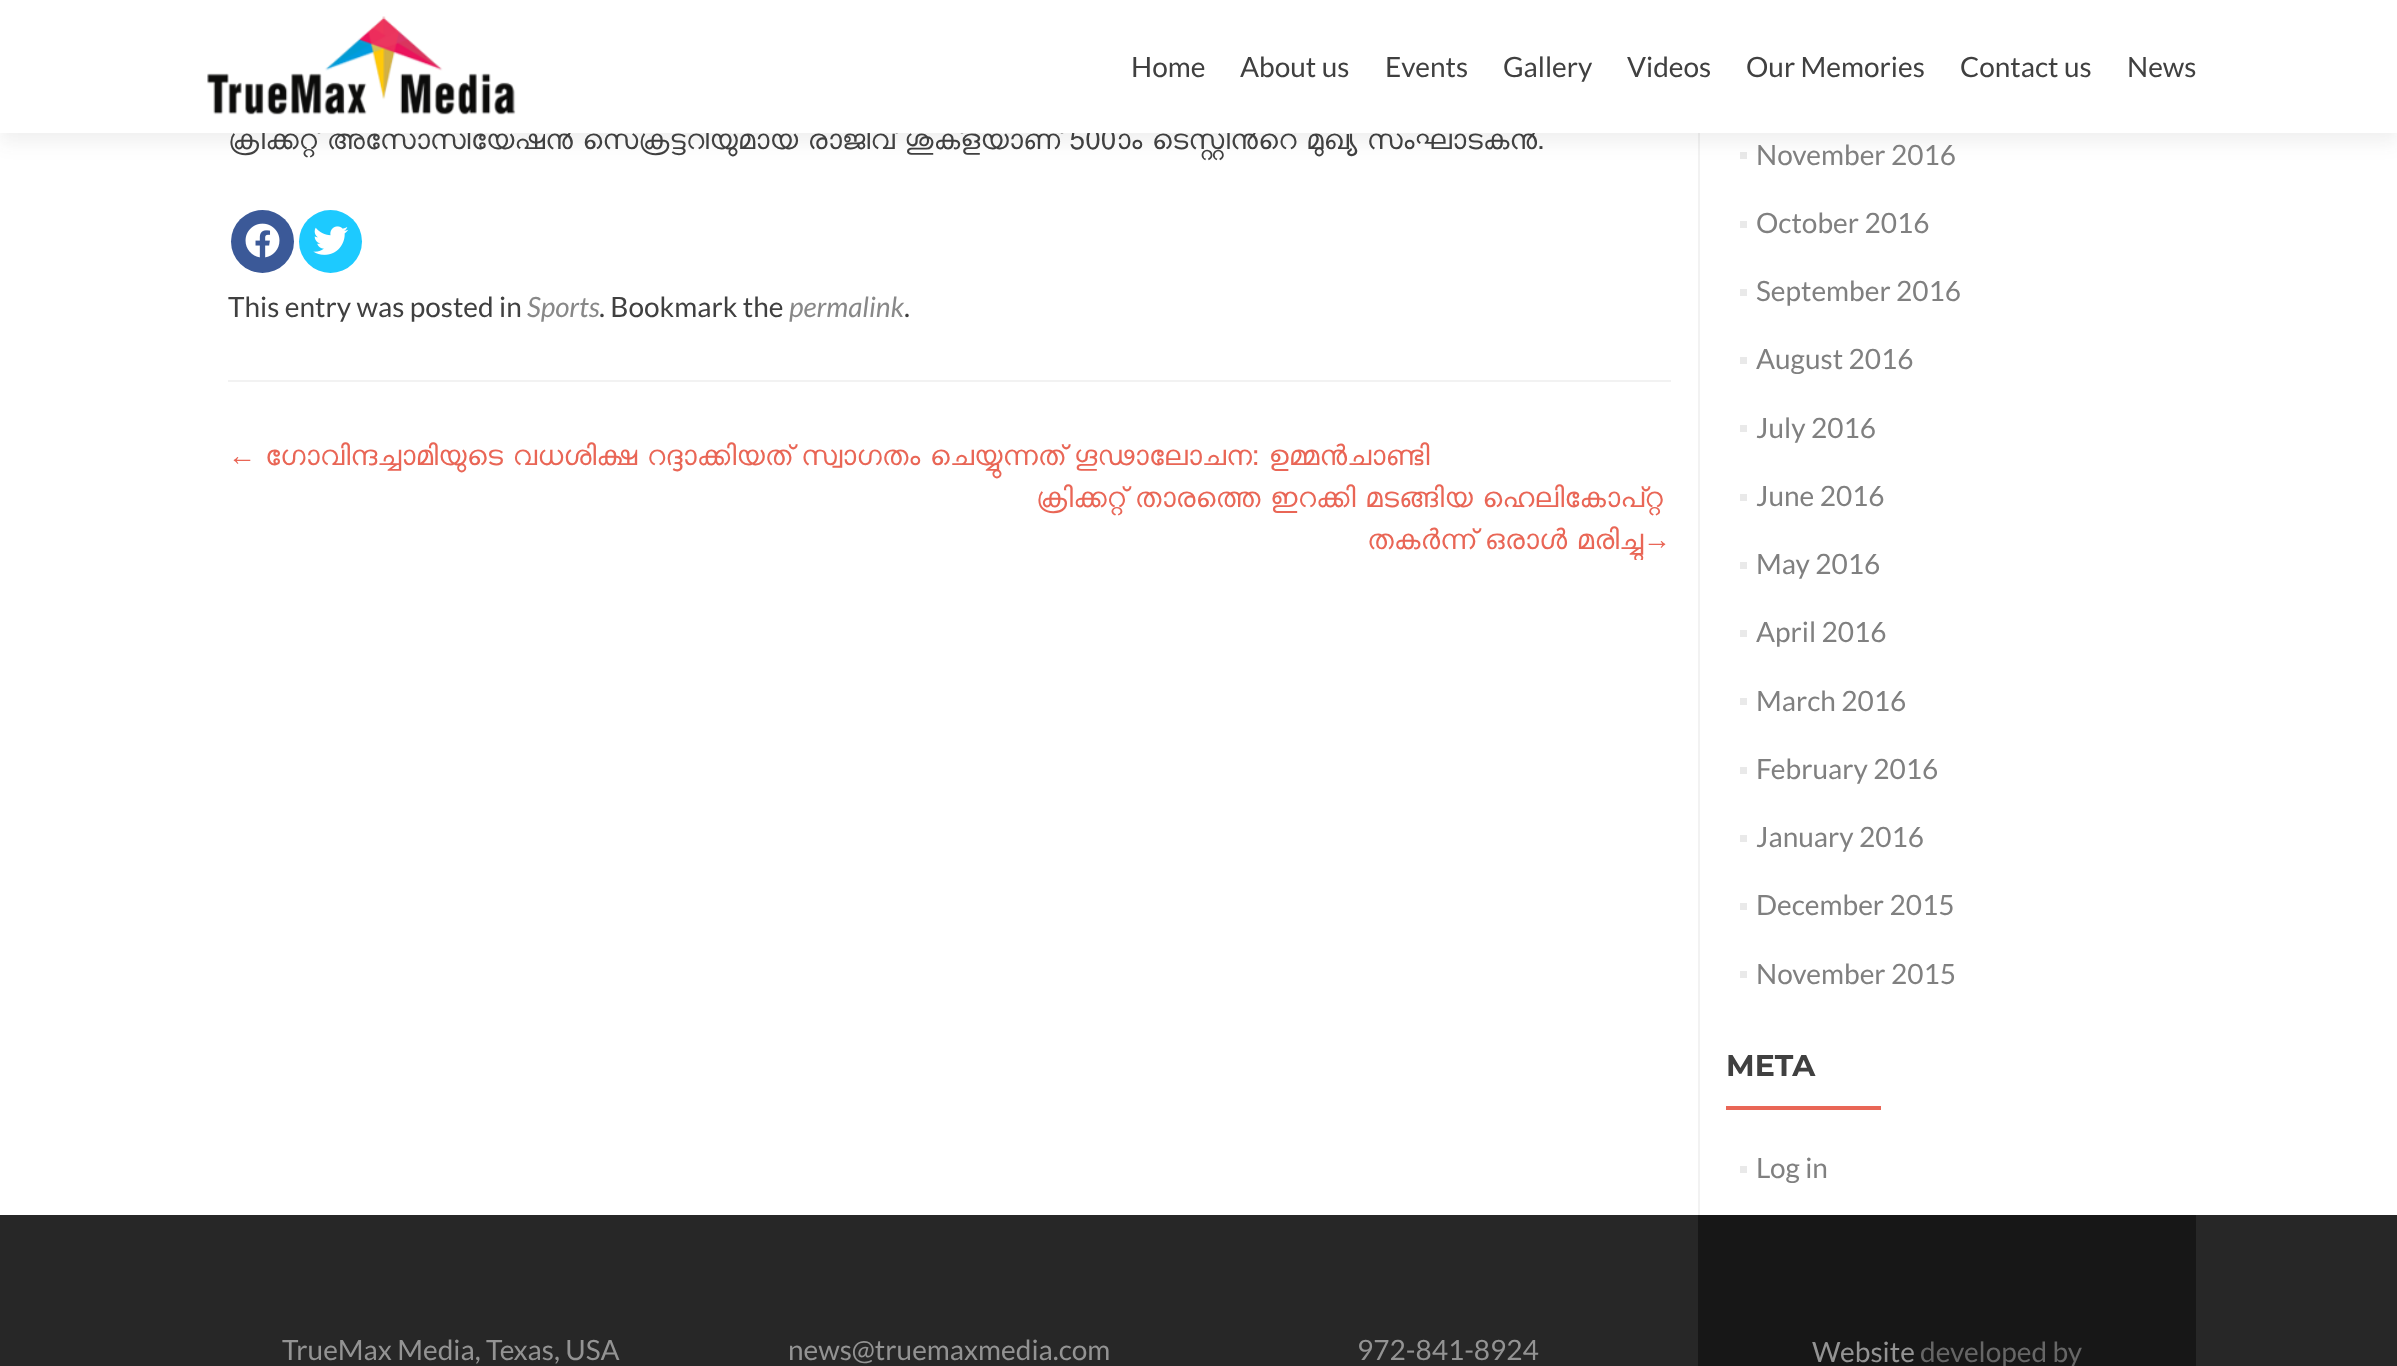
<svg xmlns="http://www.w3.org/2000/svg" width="2397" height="1366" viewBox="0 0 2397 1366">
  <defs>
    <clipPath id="clip1"><rect x="228" y="434" width="1443" height="126"/></clipPath>
  </defs>
  <rect width="100%" height="100%" fill="rgb(255,255,255)"/>
  <rect x="1698" y="133" width="2" height="1082" fill="rgba(0,0,0,0.05)"/>
  <rect x="1740" y="152" width="7" height="7" fill="rgb(233,233,233)"/>
  <rect x="0" y="9" width="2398" height="133" fill="rgba(50,50,50,0.08)" filter="blur(9.5px)"/>
  <text x="228" y="149" word-spacing="-1.75" font-family="FreeSans" font-size="28" fill="rgb(64,64,64)">ക്രിക്കറ്റ് അസോസിയേഷന്‍ സെക്രട്ടറിയുമായ രാജീവ് ശുക്ളയാണ് 500ാം ടെസ്റ്റിന്‍െറ മുഖ്യ സംഘാടകന്‍.</text>
  <rect x="0" y="0" width="2397" height="133" fill="rgb(255,255,255)"/>
  <image x="207" y="16" width="309" height="99" href="pic1.png"/>
  <g font-family="Lato" font-size="28" fill="rgb(64,64,64)">
    <text x="1131" y="77">Home</text>
    <text x="1240" y="77">About us</text>
    <text x="1385" y="77">Events</text>
    <text x="1503" y="77">Gallery</text>
    <text x="1627" y="77">Videos</text>
    <text x="1746" y="77">Our Memories</text>
    <text x="1960" y="77">Contact us</text>
    <text x="2127" y="77">News</text>
  </g>
  <rect x="228" y="380" width="1443" height="2" fill="rgb(242,242,242)"/>
  <circle cx="262.5" cy="241.5" r="31.5" fill="rgb(59,89,152)"/>
  <image x="245" y="223" width="35" height="35" href="pic2.png"/>
  <circle cx="330.5" cy="241.5" r="31.5" fill="rgb(29,202,255)"/>
  <image x="313" y="226" width="36" height="29" href="pic3.png"/>
  <text x="228" y="317" font-family="Lato" font-size="28" fill="rgb(64,64,64)">This entry was posted in</text>
  <text x="527" y="317" font-family="Lato" font-size="28" font-style="italic" fill="rgb(136,136,136)">Sports</text>
  <text x="599" y="317" font-family="Lato" font-size="28" fill="rgb(64,64,64)">. Bookmark the</text>
  <text x="789" y="317" font-family="Lato" font-size="28" font-style="italic" fill="rgb(136,136,136)">permalink</text>
  <text x="904" y="317" font-family="Lato" font-size="28" fill="rgb(64,64,64)">.</text>
  <text x="228" y="465" font-family="Liberation Sans" font-size="28" fill="rgb(233,102,86)">←</text>
  <g font-family="FreeSans" font-size="28" fill="rgb(233,102,86)">
    <text x="265" y="465" word-spacing="-1.75">ഗോവിന്ദച്ചാമിയുടെ വധശിക്ഷ റദ്ദാക്കിയത് സ്വാഗതം ചെയ്യുന്നത് ഗൂഢാലോചന: ഉമ്മൻചാണ്ടി</text>
    <text x="1036" y="507" word-spacing="-1.75">ക്രിക്കറ്റ് താരത്തെ ഇറക്കി മടങ്ങിയ ഹെലികോപ്റ്റ</text>
  </g>
  <g clip-path="url(#clip1)">
    <text x="1367" y="549" word-spacing="-1.75" font-family="FreeSans" font-size="28" fill="rgb(233,102,86)">തകർന്ന് ഒരാൾ മരിച്ചു</text>
  </g>
  <text x="1643" y="549" font-family="Liberation Sans" font-size="28" fill="rgb(233,102,86)">→</text>
  <text x="1756" y="165" font-family="Lato" font-size="28" fill="rgb(128,128,128)">November 2016</text>
  <rect x="1740" y="221" width="7" height="7" fill="rgb(233,233,233)"/>
  <text x="1756" y="233" font-family="Lato" font-size="28" fill="rgb(128,128,128)">October 2016</text>
  <rect x="1740" y="289" width="7" height="7" fill="rgb(233,233,233)"/>
  <text x="1756" y="301" font-family="Lato" font-size="28" fill="rgb(128,128,128)">September 2016</text>
  <rect x="1740" y="357" width="7" height="7" fill="rgb(233,233,233)"/>
  <text x="1756" y="369" font-family="Lato" font-size="28" fill="rgb(128,128,128)">August 2016</text>
  <rect x="1740" y="425" width="7" height="7" fill="rgb(233,233,233)"/>
  <text x="1756" y="438" font-family="Lato" font-size="28" fill="rgb(128,128,128)">July 2016</text>
  <rect x="1740" y="494" width="7" height="7" fill="rgb(233,233,233)"/>
  <text x="1756" y="506" font-family="Lato" font-size="28" fill="rgb(128,128,128)">June 2016</text>
  <rect x="1740" y="562" width="7" height="7" fill="rgb(233,233,233)"/>
  <text x="1756" y="574" font-family="Lato" font-size="28" fill="rgb(128,128,128)">May 2016</text>
  <rect x="1740" y="630" width="7" height="7" fill="rgb(233,233,233)"/>
  <text x="1756" y="642" font-family="Lato" font-size="28" fill="rgb(128,128,128)">April 2016</text>
  <rect x="1740" y="698" width="7" height="7" fill="rgb(233,233,233)"/>
  <text x="1756" y="711" font-family="Lato" font-size="28" fill="rgb(128,128,128)">March 2016</text>
  <rect x="1740" y="767" width="7" height="7" fill="rgb(233,233,233)"/>
  <text x="1756" y="779" font-family="Lato" font-size="28" fill="rgb(128,128,128)">February 2016</text>
  <rect x="1740" y="835" width="7" height="7" fill="rgb(233,233,233)"/>
  <text x="1756" y="847" font-family="Lato" font-size="28" fill="rgb(128,128,128)">January 2016</text>
  <rect x="1740" y="903" width="7" height="7" fill="rgb(233,233,233)"/>
  <text x="1756" y="915" font-family="Lato" font-size="28" fill="rgb(128,128,128)">December 2015</text>
  <rect x="1740" y="971" width="7" height="7" fill="rgb(233,233,233)"/>
  <text x="1756" y="984" font-family="Lato" font-size="28" fill="rgb(128,128,128)">November 2015</text>
  <text x="1726" y="1076" font-family="Montserrat" font-size="30" font-weight="bold" fill="rgb(64,64,64)">META</text>
  <rect x="1726" y="1106" width="155" height="4" fill="rgb(233,102,86)"/>
  <rect x="1740" y="1166" width="7" height="7" fill="rgb(233,233,233)"/>
  <text x="1756" y="1178" font-family="Lato" font-size="28" fill="rgb(128,128,128)">Log in</text>
  <rect x="0" y="1215" width="2397" height="151" fill="rgb(39,39,39)"/>
  <g font-family="Lato" font-size="28" fill="rgb(147,147,147)">
    <text x="282" y="1360">TrueMax Media, Texas, USA</text>
    <text x="788" y="1360">news@truemaxmedia.com</text>
    <text x="1357" y="1360">972-841-8924</text>
  </g>
  <rect x="1698" y="1215" width="498" height="151" fill="rgb(23,23,23)"/>
  <text x="1812" y="1362" font-family="Lato" font-size="28" fill="rgb(147,147,147)">Website</text>
  <text x="1920" y="1362" font-family="Lato" font-size="28" fill="rgb(102,102,102)">developed by</text>
</svg>
